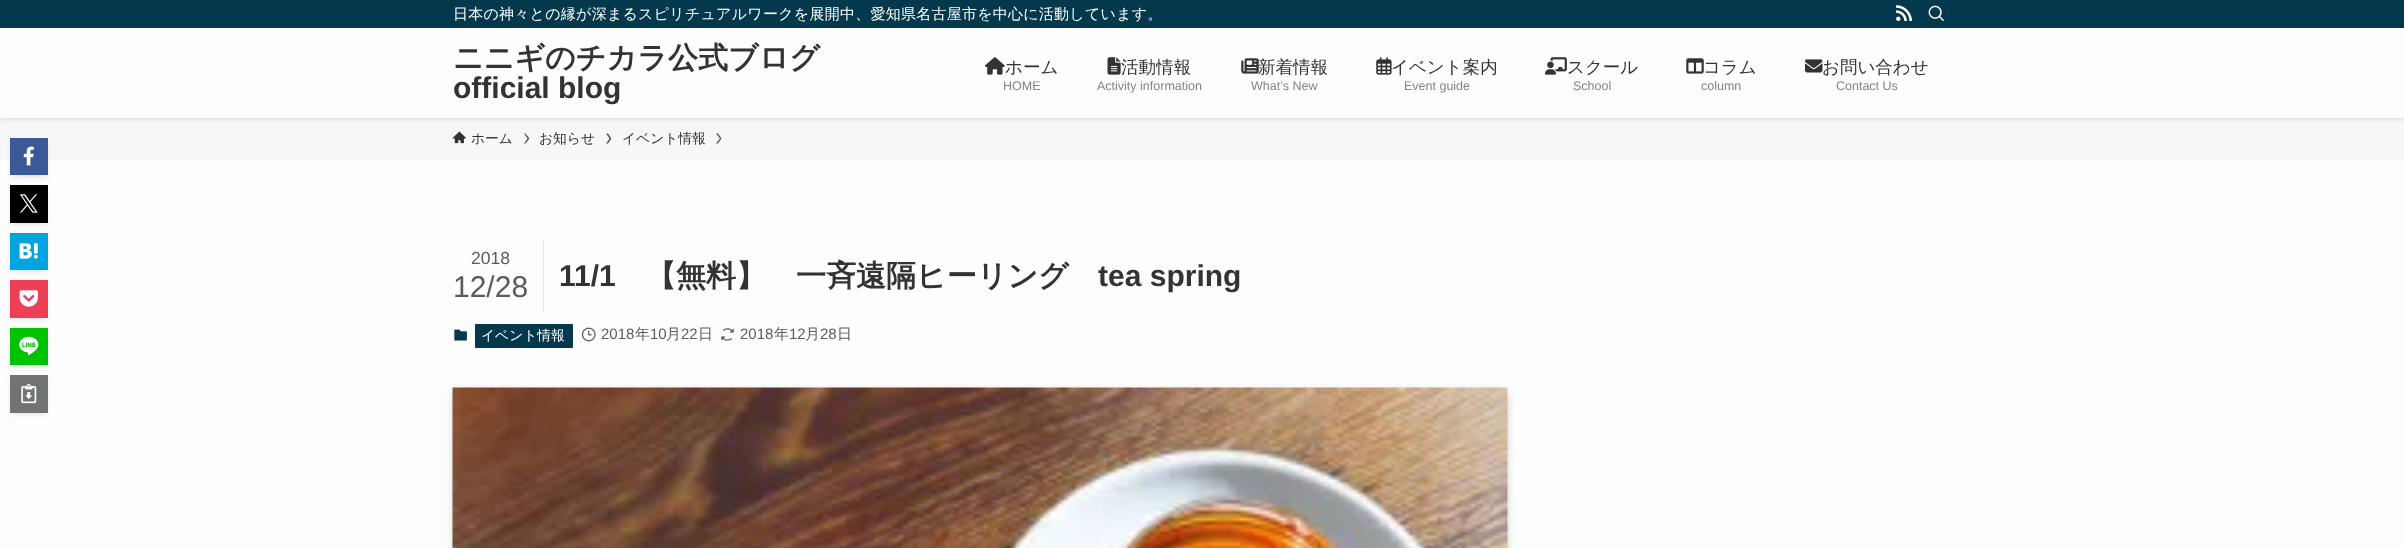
<svg xmlns="http://www.w3.org/2000/svg" width="2404" height="548" viewBox="0 0 2404 548">
  <rect width="100%" height="100%" fill="rgb(253,253,253)"/>
  <rect x="0" y="118" width="2404" height="42" fill="rgb(247,247,247)"/>
  <rect x="0" y="1" width="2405" height="118" fill="rgba(0,0,0,0.12)" filter="blur(2.5px)"/>
  <rect x="0" y="28" width="2404" height="90" fill="rgb(253,253,253)"/>
  <rect x="0" y="0" width="2404" height="28" fill="rgb(4,56,76)"/>
  <text x="453" y="19" font-family="WenQuanYi Zen Hei" font-size="15" font-weight="500" letter-spacing="0.25" fill="rgb(255,255,255)">日本の神々との縁が深まるスピリチュアルワークを展開中、愛知県名古屋市を中心に活動しています。</text>
  <image x="1896" y="5" width="16" height="16" href="pic1.png"/>
  <image x="1928" y="5" width="16" height="16" href="pic2.png"/>
  <text x="453" y="68" font-family="WenQuanYi Zen Hei" font-size="30" font-weight="bold" fill="rgb(51,51,51)">ニニギのチカラ公式ブログ</text>
  <text x="453" y="98" font-family="Liberation Sans" font-size="30" font-weight="bold" fill="rgb(51,51,51)">official blog</text>
  <image x="985" y="57" width="20" height="18" href="pic3.png"/>
  <text x="1005" y="73" font-family="WenQuanYi Zen Hei" font-size="17.5" font-weight="500" fill="rgb(51,51,51)">ホーム</text>
  <text x="1003" y="90" font-family="Liberation Sans" font-size="12.5" fill="rgb(132,132,132)">HOME</text>
  <image x="1107" y="57" width="14" height="18" href="pic4.png"/>
  <text x="1121" y="73" font-family="WenQuanYi Zen Hei" font-size="17.5" font-weight="500" fill="rgb(51,51,51)">活動情報</text>
  <text x="1097" y="90" font-family="Liberation Sans" font-size="12.5" fill="rgb(132,132,132)">Activity information</text>
  <image x="1241" y="58" width="18" height="16" href="pic5.png"/>
  <text x="1258" y="73" font-family="WenQuanYi Zen Hei" font-size="17.5" font-weight="500" fill="rgb(51,51,51)">新着情報</text>
  <text x="1251" y="90" font-family="Liberation Sans" font-size="12.5" fill="rgb(132,132,132)">What’s New</text>
  <image x="1376" y="57" width="16" height="18" href="pic6.png"/>
  <text x="1391" y="73" font-family="WenQuanYi Zen Hei" font-size="17.5" font-weight="500" fill="rgb(51,51,51)">イベント案内</text>
  <text x="1404" y="90" font-family="Liberation Sans" font-size="12.5" fill="rgb(132,132,132)">Event guide</text>
  <image x="1545" y="57" width="22" height="18" href="pic7.png"/>
  <text x="1567" y="73" font-family="WenQuanYi Zen Hei" font-size="17.5" font-weight="500" fill="rgb(51,51,51)">スクール</text>
  <text x="1573" y="90" font-family="Liberation Sans" font-size="12.5" fill="rgb(132,132,132)">School</text>
  <image x="1686" y="58" width="18" height="16" href="pic8.png"/>
  <text x="1703" y="73" font-family="WenQuanYi Zen Hei" font-size="17.5" font-weight="500" fill="rgb(51,51,51)">コラム</text>
  <text x="1701" y="90" font-family="Liberation Sans" font-size="12.5" fill="rgb(132,132,132)">column</text>
  <image x="1805" y="59" width="18" height="14" href="pic9.png"/>
  <text x="1822" y="73" font-family="WenQuanYi Zen Hei" font-size="17.5" font-weight="500" fill="rgb(51,51,51)">お問い合わせ</text>
  <text x="1836" y="90" font-family="Liberation Sans" font-size="12.5" fill="rgb(132,132,132)">Contact Us</text>
  <image x="452" y="131" width="15" height="13" href="pic10.png"/>
  <text x="471" y="143" font-family="WenQuanYi Zen Hei" font-size="13.75" font-weight="500" fill="rgb(51,51,51)">ホーム</text>
  <path d="M525.5 133.5H524L527.5 138.5L524 143.5H525.5L529.5 138.5Z" fill="rgb(90,90,90)"/>
  <text x="539" y="143" font-family="WenQuanYi Zen Hei" font-size="13.75" font-weight="500" fill="rgb(51,51,51)">お知らせ</text>
  <path d="M608 133.5H606L609.5 138.5L606 143.5H608L611.5 138.5Z" fill="rgb(90,90,90)"/>
  <text x="622" y="143" font-family="WenQuanYi Zen Hei" font-size="13.75" font-weight="500" fill="rgb(51,51,51)">イベント情報</text>
  <path d="M718 133.5H716L720 138.5L716 143.5H718L721.5 138.5Z" fill="rgb(90,90,90)"/>
  <rect x="15" y="148" width="28" height="27" fill="rgba(0,0,0,0.1)" filter="blur(2.5px)"/>
  <rect x="10" y="140" width="38" height="38" fill="rgba(0,0,0,0.05)" filter="blur(2.5px)"/>
  <rect x="10" y="138" width="38" height="37" fill="rgb(59,89,152)"/>
  <image x="23" y="146" width="11" height="20" href="pic11.png"/>
  <rect x="15" y="195" width="28" height="28" fill="rgba(0,0,0,0.1)" filter="blur(2.5px)"/>
  <rect x="10" y="188" width="38" height="37" fill="rgba(0,0,0,0.05)" filter="blur(2.5px)"/>
  <rect x="10" y="185" width="38" height="38" fill="rgb(0,0,0)"/>
  <image x="19" y="194" width="19" height="19" href="pic12.png"/>
  <rect x="15" y="243" width="28" height="27" fill="rgba(0,0,0,0.1)" filter="blur(2.5px)"/>
  <rect x="10" y="235" width="38" height="38" fill="rgba(0,0,0,0.05)" filter="blur(2.5px)"/>
  <rect x="10" y="233" width="38" height="37" fill="rgb(0,164,222)"/>
  <image x="19" y="243" width="19" height="16" href="pic13.png"/>
  <rect x="15" y="290" width="28" height="28" fill="rgba(0,0,0,0.1)" filter="blur(2.5px)"/>
  <rect x="10" y="283" width="38" height="37" fill="rgba(0,0,0,0.05)" filter="blur(2.5px)"/>
  <rect x="10" y="280" width="38" height="38" fill="rgb(239,63,86)"/>
  <image x="19" y="290" width="19" height="17" href="pic14.png"/>
  <rect x="15" y="338" width="28" height="27" fill="rgba(0,0,0,0.1)" filter="blur(2.5px)"/>
  <rect x="10" y="330" width="38" height="38" fill="rgba(0,0,0,0.05)" filter="blur(2.5px)"/>
  <rect x="10" y="328" width="38" height="37" fill="rgb(0,195,0)"/>
  <image x="19" y="336" width="20" height="20" href="pic15.png"/>
  <rect x="15" y="385" width="28" height="28" fill="rgba(0,0,0,0.1)" filter="blur(2.5px)"/>
  <rect x="10" y="378" width="38" height="37" fill="rgba(0,0,0,0.05)" filter="blur(2.5px)"/>
  <rect x="10" y="375" width="38" height="38" fill="rgb(113,116,117)"/>
  <image x="21" y="384" width="16" height="20" href="pic16.png"/>
  <rect x="543" y="240" width="1" height="73" fill="rgb(232,232,232)"/>
  <text x="471" y="264" font-family="Liberation Sans" font-size="17.5" fill="rgb(91,91,91)">2018</text>
  <text x="453" y="297" font-family="Liberation Sans" font-size="30" fill="rgb(91,91,91)">12/28</text>
  <text x="559" y="286" font-family="Liberation Sans" font-size="30" font-weight="bold" fill="rgb(51,51,51)">11/1</text>
  <text x="646" y="286" font-family="WenQuanYi Zen Hei" font-size="30" font-weight="bold" fill="rgb(51,51,51)">【無料】　一斉遠隔ヒーリング</text>
  <text x="1098" y="286" font-family="Liberation Sans" font-size="30" font-weight="bold" fill="rgb(51,51,51)">tea spring</text>
  <image x="454" y="329" width="13" height="12" href="pic17.png"/>
  <rect x="475" y="324" width="98" height="24" rx="1" fill="rgb(4,56,76)"/>
  <text x="481" y="340" font-family="WenQuanYi Zen Hei" font-size="13.75" font-weight="500" fill="rgb(255,255,255)">イベント情報</text>
  <image x="581" y="327" width="15" height="15" href="pic18.png"/>
  <text x="601" y="339" font-family="Liberation Sans" font-size="15" fill="rgb(91,91,91)">2018</text>
  <text x="635" y="339" font-family="WenQuanYi Zen Hei" font-size="15" font-weight="500" fill="rgb(91,91,91)">年</text>
  <text x="650" y="339" font-family="Liberation Sans" font-size="15" fill="rgb(91,91,91)">10</text>
  <text x="666" y="339" font-family="WenQuanYi Zen Hei" font-size="15" font-weight="500" fill="rgb(91,91,91)">月</text>
  <text x="681" y="339" font-family="Liberation Sans" font-size="15" fill="rgb(91,91,91)">22</text>
  <text x="698" y="339" font-family="WenQuanYi Zen Hei" font-size="15" font-weight="500" fill="rgb(91,91,91)">日</text>
  <image x="721" y="328" width="13" height="13" href="pic19.png"/>
  <text x="740" y="339" font-family="Liberation Sans" font-size="15" fill="rgb(91,91,91)">2018</text>
  <text x="774" y="339" font-family="WenQuanYi Zen Hei" font-size="15" font-weight="500" fill="rgb(91,91,91)">年</text>
  <text x="789" y="339" font-family="Liberation Sans" font-size="15" fill="rgb(91,91,91)">12</text>
  <text x="805" y="339" font-family="WenQuanYi Zen Hei" font-size="15" font-weight="500" fill="rgb(91,91,91)">月</text>
  <text x="820" y="339" font-family="Liberation Sans" font-size="15" fill="rgb(91,91,91)">28</text>
  <text x="837" y="339" font-family="WenQuanYi Zen Hei" font-size="15" font-weight="500" fill="rgb(91,91,91)">日</text>
  <rect x="458" y="398" width="1045" height="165" fill="rgba(0,0,0,0.2)" filter="blur(5px)"/>
  <rect x="453" y="390" width="1055" height="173" fill="rgba(0,0,0,0.1)" filter="blur(5px)"/>
  <image x="452" y="387" width="1056" height="161" href="pic20.png"/>
</svg>
